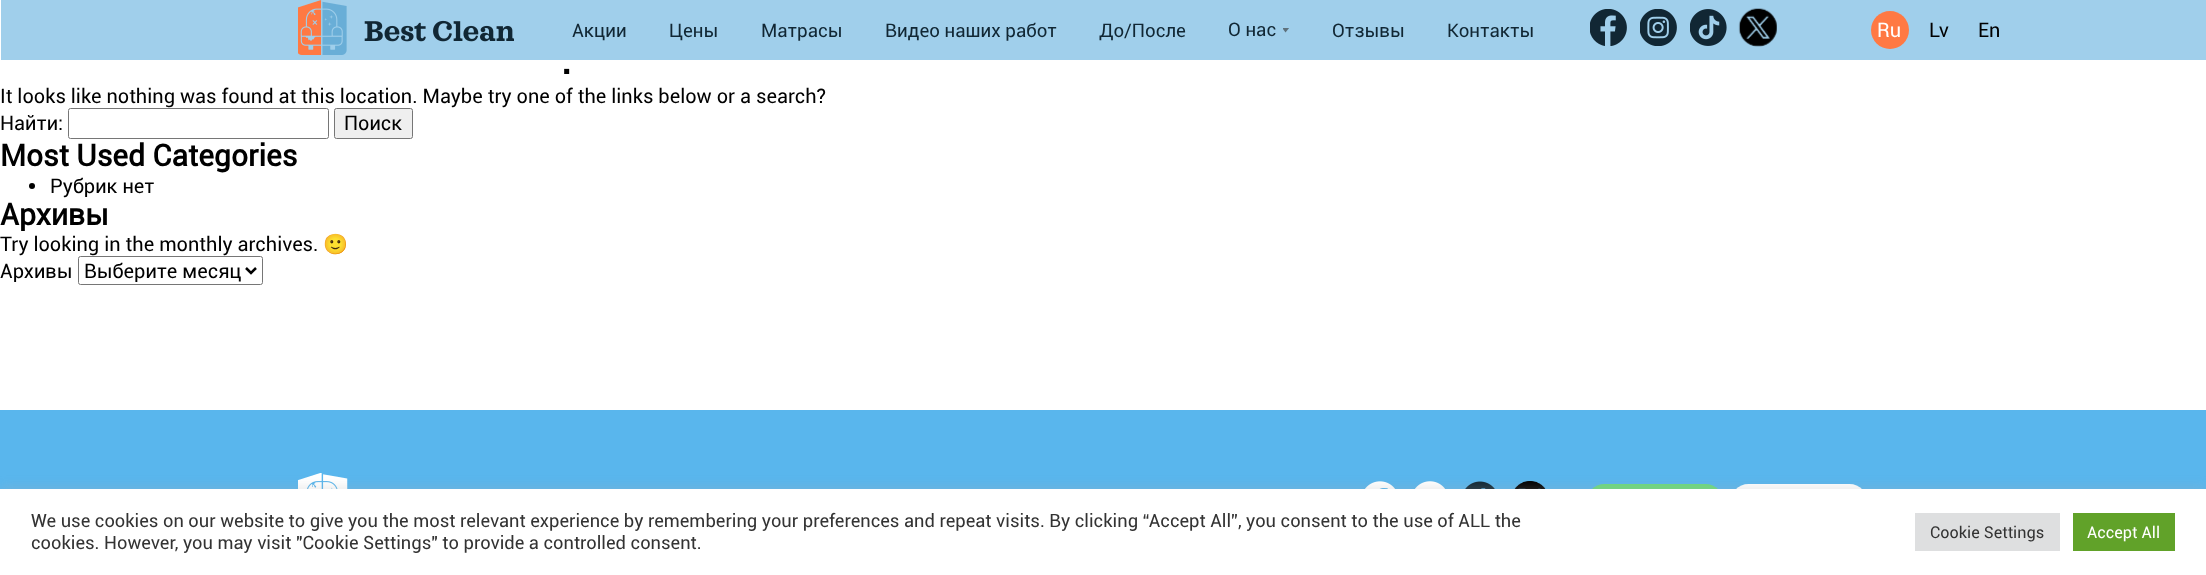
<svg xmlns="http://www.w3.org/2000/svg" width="2206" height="575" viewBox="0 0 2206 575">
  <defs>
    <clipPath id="clip1"><rect x="1283" y="28" width="7" height="5"/></clipPath>
  </defs>
  <rect width="100%" height="100%" fill="rgb(255,255,255)"/>
  <rect x="1" y="0" width="2205" height="60" fill="rgb(160,207,235)"/>
  <image x="298" y="0" width="216" height="55" href="pic1.png"/>
  <g font-family="Roboto" font-size="18.75" fill="rgb(17,39,52)">
    <text x="572" y="37">Акции</text>
    <text x="669" y="37">Цены</text>
    <text x="761" y="37">Матрасы</text>
    <text x="885" y="37">Видео наших работ</text>
    <text x="1099" y="37">До/После</text>
    <text x="1228" y="36">О нас</text>
  </g>
  <g clip-path="url(#clip1)">
    <path d="M1289.5 27.5H1282L1285.5 32.5Z" fill="rgb(94,113,124)"/>
  </g>
  <g font-family="Roboto" font-size="18.75" fill="rgb(17,39,52)">
    <text x="1332" y="37">Отзывы</text>
    <text x="1447" y="37">Контакты</text>
  </g>
  <image x="1590" y="9" width="37" height="37" href="pic2.png"/>
  <image x="1640" y="9" width="37" height="37" href="pic3.png"/>
  <image x="1690" y="9" width="37" height="37" href="pic4.png"/>
  <image x="1738" y="8" width="39" height="39" href="pic5.png"/>
  <circle cx="1890" cy="30" r="19" fill="rgb(255,121,67)"/>
  <text x="1877" y="37" font-family="Roboto" font-size="20" fill="rgb(255,255,255)">Ru</text>
  <g font-family="Roboto" font-size="20" fill="rgb(0,0,0)">
    <text x="1929" y="37">Lv</text>
    <text x="1978" y="37">En</text>
  </g>
  <text x="561" y="74" font-family="Roboto" font-size="40" font-weight="bold" fill="rgb(0,0,0)">.</text>
  <g font-family="Roboto" font-size="20" fill="rgb(0,0,0)">
    <text>
      <tspan x="0" y="103">It looks like nothing was found at this location. Maybe try one of the links below or a search?</tspan>
      <tspan x="0" y="130">Найти:</tspan>
    </text>
  </g>
  <rect x="68.5" y="108.5" width="260" height="30" rx="2" fill="none" stroke="rgb(118,118,118)"/>
  <rect x="334.5" y="108.5" width="78" height="30" rx="2" fill="rgb(239,239,239)" stroke="rgb(118,118,118)"/>
  <text x="344" y="130" font-family="Roboto" font-size="20" fill="rgb(0,0,0)">Поиск</text>
  <text x="0" y="166" font-family="Roboto" font-size="30" font-weight="bold" fill="rgb(0,0,0)">Most Used Categories</text>
  <circle cx="32" cy="186" r="3" fill="rgb(0,0,0)"/>
  <text x="50" y="193" font-family="Roboto" font-size="20" fill="rgb(0,0,0)">Рубрик нет</text>
  <text x="0" y="225" font-family="Roboto" font-size="30" font-weight="bold" fill="rgb(0,0,0)">Архивы</text>
  <text x="0" y="251" font-family="Roboto" font-size="20" fill="rgb(0,0,0)">Try looking in the monthly archives.</text>
  <text x="323" y="251" font-family="Noto Color Emoji" font-size="20" fill="rgb(0,0,0)">🙂</text>
  <text x="0" y="278" font-family="Roboto" font-size="20" fill="rgb(0,0,0)">Архивы</text>
  <rect x="78.5" y="256.5" width="184" height="28" rx="2" fill="none" stroke="rgb(118,118,118)"/>
  <path d="M246 268L251 273L256 268" fill="none" stroke="rgb(0,0,0)" stroke-width="2.5"/>
  <text x="84" y="278" font-family="Roboto" font-size="20" fill="rgb(0,0,0)">Выберите месяц</text>
  <rect x="0" y="410" width="2206" height="79" fill="rgb(89,182,237)"/>
  <image x="298" y="473" width="50" height="16" href="pic6.png"/>
  <image x="1365" y="481" width="30" height="8" href="pic7.png"/>
  <image x="1415" y="481" width="30" height="8" href="pic8.png"/>
  <image x="1465" y="481" width="30" height="8" href="pic9.png"/>
  <image x="1514" y="481" width="32" height="8" href="pic10.png"/>
  <rect x="1586" y="484" width="138" height="37" rx="18.5" fill="rgb(107,217,125)"/>
  <rect x="1730" y="484" width="138" height="37" rx="18.5" fill="rgb(255,255,255)"/>
  <rect x="0" y="488" width="2206" height="86" fill="rgba(172,171,171,0.3)" filter="blur(6px)"/>
  <rect x="0" y="489" width="2206" height="86" fill="rgb(255,255,255)"/>
  <g font-family="Roboto" font-size="18.33" fill="rgb(51,51,51)">
    <text>
      <tspan x="31" y="527">We use cookies on our website to give you the most relevant experience by remembering your preferences and repeat visits. By clicking “Accept All”, you consent to the use of ALL the</tspan>
      <tspan x="31" y="549">cookies. However, you may visit "Cookie Settings" to provide a controlled consent.</tspan>
    </text>
  </g>
  <rect x="1915" y="513" width="145" height="38" fill="rgb(222,223,224)"/>
  <text x="1930" y="538" font-family="Roboto" font-size="16.25" fill="rgb(51,51,51)">Cookie Settings</text>
  <rect x="2073" y="513" width="102" height="38" fill="rgb(97,162,41)"/>
  <text x="2087" y="538" font-family="Roboto" font-size="16.25" fill="rgb(255,255,255)">Accept All</text>
</svg>
